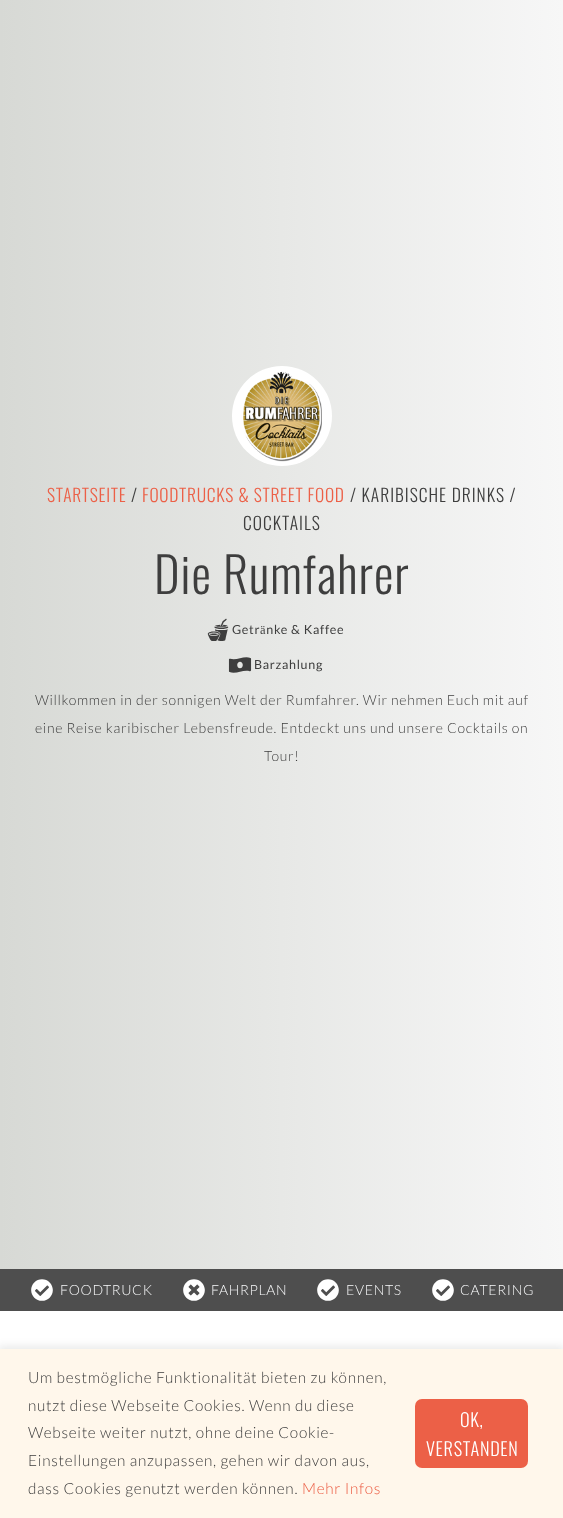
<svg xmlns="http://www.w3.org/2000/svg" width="563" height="1518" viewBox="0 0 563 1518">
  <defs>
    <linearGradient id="g1" gradientUnits="userSpaceOnUse" x1="0" y1="575" x2="563" y2="575"><stop offset="0" stop-color="rgb(215,217,213)"/><stop offset="1" stop-color="rgb(247,247,247)"/></linearGradient>
  </defs>
  <rect width="100%" height="100%" fill="rgb(255,255,255)"/>
  <rect x="0" y="0" width="563" height="1269" fill="url(#g1)"/>
  <circle cx="282" cy="416" r="50" fill="rgb(255,255,255)"/>
  <image x="243" y="371" width="79" height="91" href="pic1.png"/>
  <text x="47" y="502" font-family="Oswald" font-size="17.5" font-weight="300" letter-spacing="0.7" fill="rgb(236,96,71)">STARTSEITE</text>
  <text x="131" y="502" font-family="Oswald" font-size="17.5" font-weight="300" letter-spacing="1" fill="rgb(62,62,62)">/</text>
  <text x="142" y="502" font-family="Oswald" font-size="17.5" font-weight="300" letter-spacing="0.7" fill="rgb(236,96,71)">FOODTRUCKS &amp; STREET FOOD</text>
  <g font-family="Oswald" font-size="17.5" font-weight="300" letter-spacing="1" fill="rgb(62,62,62)">
    <text x="350" y="502">/ KARIBISCHE DRINKS /</text>
    <text x="243" y="530">COCKTAILS</text>
  </g>
  <text x="154" y="594" font-family="Oswald" font-size="49" font-weight="300" letter-spacing="1" fill="rgb(62,62,62)">Die Rumfahrer</text>
  <image x="207" y="618" width="22" height="23" href="pic2.png"/>
  <text x="232" y="634" font-family="Lato" font-size="12.5" letter-spacing="0.7" fill="rgb(62,62,62)">Getränke &amp; Kaffee</text>
  <image x="228" y="657" width="24" height="16" href="pic3.png"/>
  <text x="254" y="669" font-family="Lato" font-size="12.5" letter-spacing="0.7" fill="rgb(62,62,62)">Barzahlung</text>
  <g font-family="Lato" font-size="14" font-weight="300" letter-spacing="0.7" fill="rgb(62,62,62)">
    <text x="35" y="705">Willkommen in der sonnigen Welt der Rumfahrer. Wir nehmen Euch mit auf</text>
    <text x="35" y="733">eine Reise karibischer Lebensfreude. Entdeckt uns und unsere Cocktails on</text>
    <text x="264" y="761">Tour!</text>
  </g>
  <rect x="0" y="1269" width="563" height="42" fill="rgb(78,78,78)"/>
  <image x="31" y="1279" width="22" height="22" href="pic4.png"/>
  <text x="60" y="1295" font-family="Lato" font-size="14" font-weight="300" letter-spacing="0.7" fill="rgb(248,249,250)">FOODTRUCK</text>
  <image x="183" y="1279" width="22" height="22" href="pic5.png"/>
  <text x="211" y="1295" font-family="Lato" font-size="14" font-weight="300" letter-spacing="0.7" fill="rgb(248,249,250)">FAHRPLAN</text>
  <image x="317" y="1279" width="22" height="22" href="pic4.png"/>
  <text x="346" y="1295" font-family="Lato" font-size="14" font-weight="300" letter-spacing="0.7" fill="rgb(248,249,250)">EVENTS</text>
  <image x="432" y="1279" width="22" height="22" href="pic4.png"/>
  <text x="460" y="1295" font-family="Lato" font-size="14" font-weight="300" letter-spacing="0.7" fill="rgb(248,249,250)">CATERING</text>
  <rect x="-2" y="1347" width="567" height="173" fill="rgba(0,5,13,0.1)" filter="blur(5px)"/>
  <rect x="0" y="1349" width="563" height="169" fill="rgb(255,247,235)"/>
  <g font-family="Lato" font-size="15.4" font-weight="300" letter-spacing="0.7" fill="rgb(62,62,62)">
    <text>
      <tspan x="28" y="1383">Um bestmögliche Funktionalität bieten zu können,</tspan>
      <tspan x="28" y="1411">nutzt diese Webseite Cookies. Wenn du diese</tspan>
      <tspan x="28" y="1438">Webseite weiter nutzt, ohne deine Cookie-</tspan>
      <tspan x="28" y="1466">Einstellungen anzupassen, gehen wir davon aus,</tspan>
      <tspan x="28" y="1494">dass Cookies genutzt werden können.</tspan>
    </text>
  </g>
  <text x="302" y="1494" font-family="Lato" font-size="15.4" font-weight="300" letter-spacing="0.7" fill="rgb(236,96,71)">Mehr Infos</text>
  <rect x="415" y="1399" width="113" height="69" rx="7" fill="rgb(236,96,71)"/>
  <g font-family="Oswald" font-size="18.25" font-weight="300" letter-spacing="0.7" fill="rgb(255,255,255)">
    <text x="460" y="1427">OK,</text>
    <text x="426" y="1456">VERSTANDEN</text>
  </g>
</svg>
